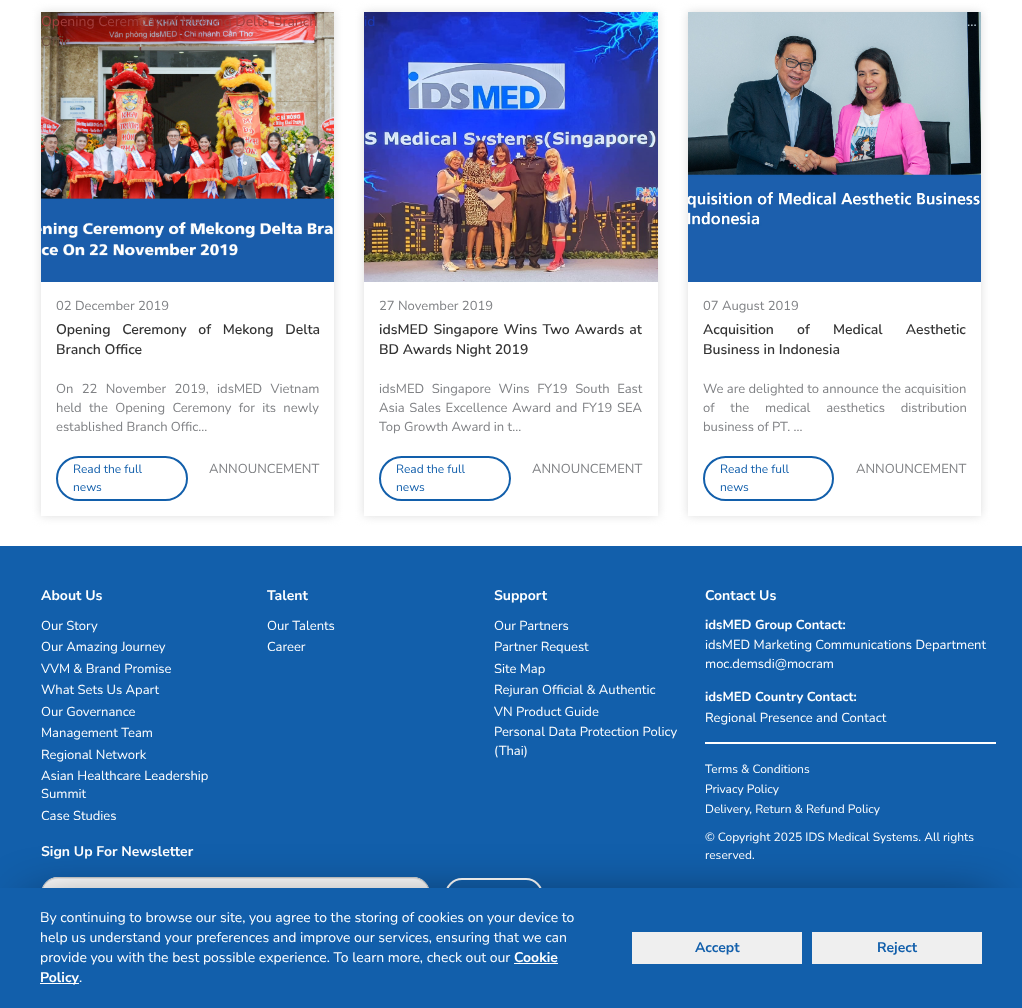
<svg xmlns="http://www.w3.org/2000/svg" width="1022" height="1008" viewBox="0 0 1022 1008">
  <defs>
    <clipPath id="clip1"><path d="M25 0H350V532H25ZM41 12H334V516H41Z" clip-rule="evenodd"/></clipPath>
    <clipPath id="clip2"><path d="M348 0H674V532H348ZM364 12H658V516H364Z" clip-rule="evenodd"/></clipPath>
    <clipPath id="clip3"><path d="M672 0H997V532H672ZM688 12H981V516H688Z" clip-rule="evenodd"/></clipPath>
  </defs>
  <rect width="100%" height="100%" fill="rgb(255,255,255)"/>
  <g clip-path="url(#clip1)">
    <rect x="41" y="12" width="293" height="504" fill="rgb(221,221,221)" filter="blur(5px)"/>
  </g>
  <image x="41" y="12" width="293" height="270" href="pic1.png"/>
  <text x="41" y="26" font-family="Nunito Sans" font-size="14" fill="rgb(163,63,61)">Opening Ceremony of Mekong Delta Branch</text>
  <text x="41" y="46" font-family="Nunito Sans" font-size="14" fill="rgb(110,80,63)">Offic</text>
  <text x="56" y="310" font-family="Nunito Sans" font-size="13" fill="rgb(128,130,133)">02 December 2019</text>
  <g font-family="Nunito Sans" font-size="14" font-weight="600" fill="rgb(51,51,51)">
    <text>
      <tspan x="56" y="334" word-spacing="8">Opening Ceremony of Mekong Delta</tspan>
      <tspan x="56" y="354">Branch Office</tspan>
    </text>
  </g>
  <g font-family="Nunito Sans" font-size="13" fill="rgb(128,130,133)">
    <text>
      <tspan x="56" y="393" word-spacing="5">On 22 November 2019, idsMED Vietnam</tspan>
      <tspan x="56" y="412" word-spacing="4">held the Opening Ceremony for its newly</tspan>
      <tspan x="56" y="431">established Branch Offic...</tspan>
    </text>
  </g>
  <rect x="57" y="457" width="130" height="43" rx="21.5" fill="none" stroke="rgb(18,95,171)" stroke-width="2"/>
  <g font-family="Nunito Sans" font-size="12" fill="rgb(18,95,171)">
    <text>
      <tspan x="73" y="473">Read the full</tspan>
      <tspan x="73" y="491">news</tspan>
    </text>
  </g>
  <text x="209" y="473" font-family="Nunito Sans" font-size="13" fill="rgb(128,130,133)">ANNOUNCEMENT</text>
  <g clip-path="url(#clip2)">
    <rect x="364" y="12" width="294" height="504" fill="rgb(221,221,221)" filter="blur(5px)"/>
  </g>
  <image x="364" y="12" width="294" height="270" href="pic2.png"/>
  <text x="364" y="26" font-family="Nunito Sans" font-size="14" fill="rgb(27,58,183)">id</text>
  <text x="379" y="310" font-family="Nunito Sans" font-size="13" fill="rgb(128,130,133)">27 November 2019</text>
  <g font-family="Nunito Sans" font-size="14" font-weight="600" fill="rgb(51,51,51)">
    <text>
      <tspan x="379" y="334" word-spacing="1.5">idsMED Singapore Wins Two Awards at</tspan>
      <tspan x="379" y="354">BD Awards Night 2019</tspan>
    </text>
  </g>
  <g font-family="Nunito Sans" font-size="13" fill="rgb(128,130,133)">
    <text>
      <tspan x="379" y="393" word-spacing="4.25">idsMED Singapore Wins FY19 South East</tspan>
      <tspan x="379" y="412" word-spacing="1.25">Asia Sales Excellence Award and FY19 SEA</tspan>
      <tspan x="379" y="431">Top Growth Award in t...</tspan>
    </text>
  </g>
  <rect x="380" y="457" width="130" height="43" rx="21.5" fill="none" stroke="rgb(18,95,171)" stroke-width="2"/>
  <g font-family="Nunito Sans" font-size="12" fill="rgb(18,95,171)">
    <text>
      <tspan x="396" y="473">Read the full</tspan>
      <tspan x="396" y="491">news</tspan>
    </text>
  </g>
  <text x="532" y="473" font-family="Nunito Sans" font-size="13" fill="rgb(128,130,133)">ANNOUNCEMENT</text>
  <g clip-path="url(#clip3)">
    <rect x="688" y="12" width="293" height="504" fill="rgb(221,221,221)" filter="blur(5px)"/>
  </g>
  <image x="688" y="12" width="293" height="270" href="pic3.png"/>
  <text x="967" y="26" font-family="Nunito Sans" font-size="14" fill="rgb(182,202,212)">...</text>
  <text x="703" y="310" font-family="Nunito Sans" font-size="13" fill="rgb(128,130,133)">07 August 2019</text>
  <g font-family="Nunito Sans" font-size="14" font-weight="600" fill="rgb(51,51,51)">
    <text>
      <tspan x="703" y="334" word-spacing="19.5">Acquisition of Medical Aesthetic</tspan>
      <tspan x="703" y="354">Business in Indonesia</tspan>
    </text>
  </g>
  <g font-family="Nunito Sans" font-size="13" fill="rgb(128,130,133)">
    <text>
      <tspan x="703" y="393">We are delighted to announce the acquisition</tspan>
      <tspan x="703" y="412" word-spacing="12.5">of the medical aesthetics distribution</tspan>
      <tspan x="703" y="431">business of PT. ...</tspan>
    </text>
  </g>
  <rect x="704" y="457" width="129" height="43" rx="21.5" fill="none" stroke="rgb(18,95,171)" stroke-width="2"/>
  <g font-family="Nunito Sans" font-size="12" fill="rgb(18,95,171)">
    <text>
      <tspan x="720" y="473">Read the full</tspan>
      <tspan x="720" y="491">news</tspan>
    </text>
  </g>
  <text x="856" y="473" font-family="Nunito Sans" font-size="13" fill="rgb(128,130,133)">ANNOUNCEMENT</text>
  <rect x="0" y="546" width="1022" height="342" fill="rgb(18,95,171)"/>
  <text x="41" y="600" font-family="Nunito Sans" font-size="14" font-weight="bold" fill="rgb(255,255,255)">About Us</text>
  <g font-family="Nunito Sans" font-size="13" fill="rgb(255,255,255)">
    <text>
      <tspan x="41" y="630">Our Story</tspan>
      <tspan x="41" y="651">Our Amazing Journey</tspan>
      <tspan x="41" y="673">VVM &amp; Brand Promise</tspan>
      <tspan x="41" y="694">What Sets Us Apart</tspan>
      <tspan x="41" y="716">Our Governance</tspan>
      <tspan x="41" y="737">Management Team</tspan>
      <tspan x="41" y="759">Regional Network</tspan>
      <tspan x="41" y="780">Asian Healthcare Leadership</tspan>
      <tspan x="41" y="798">Summit</tspan>
      <tspan x="41" y="820">Case Studies</tspan>
    </text>
  </g>
  <text x="267" y="600" font-family="Nunito Sans" font-size="14" font-weight="bold" fill="rgb(255,255,255)">Talent</text>
  <g font-family="Nunito Sans" font-size="13" fill="rgb(255,255,255)">
    <text>
      <tspan x="267" y="630">Our Talents</tspan>
      <tspan x="267" y="651">Career</tspan>
    </text>
  </g>
  <text x="494" y="600" font-family="Nunito Sans" font-size="14" font-weight="bold" fill="rgb(255,255,255)">Support</text>
  <g font-family="Nunito Sans" font-size="13" fill="rgb(255,255,255)">
    <text>
      <tspan x="494" y="630">Our Partners</tspan>
      <tspan x="494" y="651">Partner Request</tspan>
      <tspan x="494" y="673">Site Map</tspan>
      <tspan x="494" y="694">Rejuran Official &amp; Authentic</tspan>
      <tspan x="494" y="716">VN Product Guide</tspan>
      <tspan x="494" y="736">Personal Data Protection Policy</tspan>
      <tspan x="494" y="755">(Thai)</tspan>
    </text>
  </g>
  <text x="41" y="856" font-family="Nunito Sans" font-size="14" font-weight="bold" fill="rgb(255,255,255)">Sign Up For Newsletter</text>
  <rect x="41" y="877" width="389" height="34" rx="17" fill="rgb(255,255,255)"/>
  <path d="M58 879H413C422 879 429 886 429 894C429 886 422 878 413 878H58C49 878 42 886 42 894C42 886 49 879 58 879Z" fill="rgb(236,236,236)"/>
  <rect x="41.5" y="877.5" width="388" height="33" rx="16.5" fill="none" stroke="rgb(204,204,204)"/>
  <rect x="446" y="879" width="96" height="32" rx="16" fill="none" stroke="rgb(255,255,255)" stroke-width="2"/>
  <text x="705" y="600" font-family="Nunito Sans" font-size="14" font-weight="bold" fill="rgb(255,255,255)">Contact Us</text>
  <text x="705" y="629" font-family="Nunito Sans" font-size="13" font-weight="bold" fill="rgb(255,255,255)">idsMED Group Contact:</text>
  <g font-family="Nunito Sans" font-size="13" fill="rgb(255,255,255)">
    <text>
      <tspan x="705" y="649">idsMED Marketing Communications Department</tspan>
      <tspan x="705" y="668">moc.demsdi@mocram</tspan>
    </text>
  </g>
  <text x="705" y="701" font-family="Nunito Sans" font-size="13" font-weight="bold" fill="rgb(255,255,255)">idsMED Country Contact:</text>
  <text x="705" y="722" font-family="Nunito Sans" font-size="13" fill="rgb(255,255,255)">Regional Presence and Contact</text>
  <rect x="705" y="742" width="291" height="2" fill="rgb(255,255,255)"/>
  <g font-family="Nunito Sans" font-size="12" fill="rgb(255,255,255)">
    <text>
      <tspan x="705" y="773">Terms &amp; Conditions</tspan>
      <tspan x="705" y="793">Privacy Policy</tspan>
      <tspan x="705" y="813">Delivery, Return &amp; Refund Policy</tspan>
    </text>
    <text>
      <tspan x="705" y="841">© Copyright 2025 IDS Medical Systems. All rights</tspan>
      <tspan x="705" y="859">reserved.</tspan>
    </text>
  </g>
  <rect x="29" y="902" width="962" height="60" fill="rgba(0,0,0,0.57)" filter="blur(25px)"/>
  <rect x="0" y="888" width="1022" height="120" fill="rgb(18,95,171)"/>
  <g font-family="Nunito Sans" font-size="14" fill="rgb(255,255,255)">
    <text>
      <tspan x="40" y="922">By continuing to browse our site, you agree to the storing of cookies on your device to</tspan>
      <tspan x="40" y="942">help us understand your preferences and improve our services, ensuring that we can</tspan>
      <tspan x="40" y="962">provide you with the best possible experience. To learn more, check out our</tspan>
    </text>
  </g>
  <text x="514" y="962" font-family="Nunito Sans" font-size="14" font-weight="bold" fill="rgb(255,255,255)">Cookie</text>
  <rect x="514" y="963" width="44" height="1" fill="rgb(255,255,255)"/>
  <rect x="40" y="983" width="39" height="1" fill="rgb(255,255,255)"/>
  <text x="40" y="982" font-family="Nunito Sans" font-size="14" font-weight="bold" fill="rgb(255,255,255)">Policy</text>
  <text x="79" y="982" font-family="Nunito Sans" font-size="14" fill="rgb(255,255,255)">.</text>
  <rect x="632" y="932" width="170" height="32" fill="rgb(239,239,239)"/>
  <text x="695" y="952" font-family="Nunito Sans" font-size="14" font-weight="bold" fill="rgb(18,95,171)">Accept</text>
  <rect x="812" y="932" width="170" height="32" fill="rgb(239,239,239)"/>
  <text x="877" y="952" font-family="Nunito Sans" font-size="14" font-weight="bold" fill="rgb(18,95,171)">Reject</text>
</svg>
